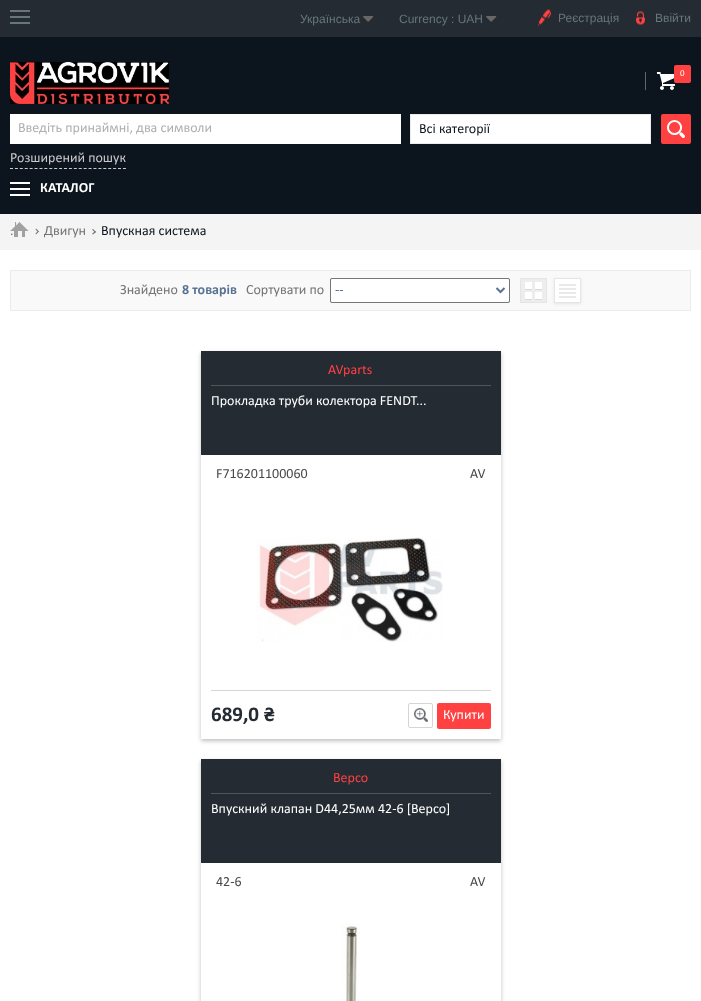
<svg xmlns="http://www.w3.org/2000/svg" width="701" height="1001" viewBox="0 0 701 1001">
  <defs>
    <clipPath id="clip1"><rect x="330" y="278" width="180" height="25"/></clipPath>
    <clipPath id="clip2"><path d="M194 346H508V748H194ZM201 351H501V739H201Z" clip-rule="evenodd"/></clipPath>
    <clipPath id="clip3"><path d="M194 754H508V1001H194ZM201 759H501V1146H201Z" clip-rule="evenodd"/></clipPath>
  </defs>
  <rect width="100%" height="100%" fill="rgb(255,255,255)"/>
  <rect x="0" y="37" width="701" height="177" fill="rgb(12,20,29)"/>
  <rect x="0" y="0" width="701" height="37" fill="rgb(36,43,51)"/>
  <rect x="10" y="10" width="20" height="2" fill="rgb(102,118,121)"/>
  <rect x="10" y="22" width="20" height="2" fill="rgb(102,118,121)"/>
  <rect x="10" y="16" width="20" height="2" fill="rgb(102,118,121)"/>
  <text x="300" y="23" font-family="Liberation Sans" font-size="12" fill="rgb(102,118,121)">Українська</text>
  <image x="363" y="16" width="11" height="6" href="pic1.png"/>
  <text x="399" y="23" font-family="Liberation Sans" font-size="12" fill="rgb(102,118,121)">Currency : UAH</text>
  <image x="486" y="16" width="11" height="6" href="pic1.png"/>
  <image x="537" y="9" width="14" height="18" href="pic2.png"/>
  <text x="558" y="22" font-family="Liberation Sans" font-size="12" fill="rgb(102,118,121)">Реєстрація</text>
  <image x="636" y="11" width="9" height="14" href="pic3.png"/>
  <text x="655" y="22" font-family="Liberation Sans" font-size="12" fill="rgb(102,118,121)">Ввійти</text>
  <image x="10" y="62" width="159" height="42" href="pic4.png"/>
  <rect x="645" y="72" width="1" height="18" fill="rgb(97,102,108)"/>
  <image x="656" y="72" width="19" height="18" href="pic5.png"/>
  <rect x="674" y="65" width="17" height="18" rx="2" fill="rgb(255,65,65)"/>
  <text x="680" y="76" font-family="Calibri" font-size="9" fill="rgb(255,255,255)">0</text>
  <rect x="10" y="114" width="391" height="30" fill="rgb(255,255,255)"/>
  <text x="18" y="132" font-family="Calibri" font-size="14" fill="rgb(175,175,175)">Введіть принаймні, два символи</text>
  <rect x="410.5" y="114.5" width="240" height="29" fill="rgb(255,255,255)" stroke="rgb(235,235,235)"/>
  <text x="419" y="133" font-family="Calibri" font-size="14" fill="rgb(12,20,29)">Всі категорії</text>
  <rect x="661" y="114" width="30" height="30" rx="2" fill="rgb(255,65,65)"/>
  <image x="667" y="120" width="18" height="18" href="pic6.png"/>
  <path d="M10 168.5H126" fill="none" stroke="rgb(203,203,203)" stroke-dasharray="3 1.91"/>
  <text x="10" y="162" font-family="Calibri" font-size="14" fill="rgb(203,203,203)">Розширений пошук</text>
  <rect x="10" y="182" width="20" height="2" fill="rgb(255,255,255)"/>
  <rect x="10" y="194" width="20" height="2" fill="rgb(255,255,255)"/>
  <text x="40" y="192" font-family="Calibri" font-size="14" font-weight="bold" fill="rgb(255,255,255)">КАТАЛОГ</text>
  <rect x="10" y="188" width="20" height="2" fill="rgb(255,255,255)"/>
  <rect x="0" y="214" width="701" height="36" fill="rgb(244,244,244)"/>
  <image x="10" y="222" width="19" height="15" href="pic7.png"/>
  <text x="10" y="235" font-family="Calibri" font-size="14" fill="rgb(115,115,115)">.</text>
  <path d="M36 228.5L39 231.5L38 232L35.5 229.5Z" fill="rgb(115,115,115)"/>
  <path d="M38 231L39 231.5L36 234.5L35.5 233.5Z" fill="rgb(115,115,115)"/>
  <text x="44" y="235" font-family="Calibri" font-size="14" fill="rgb(115,115,115)">Двигун</text>
  <path d="M93 229L96 232L95 232.5L92 229.5Z" fill="rgb(115,115,115)"/>
  <path d="M95 231L96 232L93 234.5L92 234Z" fill="rgb(115,115,115)"/>
  <text x="101" y="235" font-family="Calibri" font-size="14" fill="rgb(12,20,29)">Впускная система</text>
  <rect x="10.5" y="270.5" width="680" height="40" fill="rgb(249,249,249)" stroke="rgb(235,235,235)"/>
  <text x="120" y="294" font-family="Calibri" font-size="14" fill="rgb(115,115,115)">Знайдено</text>
  <text x="182" y="294" font-family="Calibri" font-size="14" font-weight="bold" fill="rgb(89,115,146)">8 товарів</text>
  <text x="246" y="294" font-family="Calibri" font-size="14" fill="rgb(115,115,115)">Сортувати по</text>
  <g clip-path="url(#clip1)">
    <path d="M231 179H609V402H231ZM329 277H509V302H329Z" fill="rgb(229,229,229)" fill-rule="evenodd"/>
    <path d="M231 179H609V402H231ZM331 279H511V304H331Z" fill="rgb(229,229,229)" fill-rule="evenodd"/>
  </g>
  <rect x="330.5" y="278.5" width="179" height="24" rx="1.5" fill="rgb(255,255,255)" stroke="rgb(118,118,118)"/>
  <path d="M496.5 288L500.5 292L504.5 288" fill="none" stroke="rgb(89,115,146)" stroke-width="2"/>
  <text x="335" y="294" font-family="Calibri" font-size="14" fill="rgb(89,115,146)">--</text>
  <rect x="520.5" y="278.5" width="26" height="24" fill="rgb(237,237,237)" stroke="rgb(229,229,229)"/>
  <rect x="525" y="289" width="7" height="1" fill="rgb(216,216,216)"/>
  <rect x="525" y="282" width="7" height="7" fill="rgb(255,255,255)"/>
  <rect x="535" y="289" width="7" height="1" fill="rgb(216,216,216)"/>
  <rect x="535" y="282" width="7" height="7" fill="rgb(255,255,255)"/>
  <rect x="525" y="299" width="7" height="1" fill="rgb(216,216,216)"/>
  <rect x="525" y="292" width="7" height="7" fill="rgb(255,255,255)"/>
  <rect x="535" y="299" width="7" height="1" fill="rgb(216,216,216)"/>
  <rect x="535" y="292" width="7" height="7" fill="rgb(255,255,255)"/>
  <rect x="554" y="279" width="27" height="25" fill="rgba(0,0,0,0.08)" filter="blur(1.5px)"/>
  <rect x="554.5" y="278.5" width="26" height="24" fill="rgb(255,255,255)" stroke="rgb(229,229,229)"/>
  <rect x="559" y="284" width="17" height="2" fill="rgb(233,233,233)"/>
  <rect x="559" y="288" width="17" height="2" fill="rgb(233,233,233)"/>
  <rect x="559" y="292" width="17" height="2" fill="rgb(233,233,233)"/>
  <rect x="559" y="296" width="17" height="2" fill="rgb(233,233,233)"/>
  <g clip-path="url(#clip2)">
    <rect x="201" y="353" width="300" height="388" fill="rgba(0,0,0,0.25)" filter="blur(2px)"/>
  </g>
  <rect x="201" y="351" width="300" height="104" fill="rgb(36,43,51)"/>
  <text x="328" y="374" font-family="Calibri" font-size="14" fill="rgb(255,65,65)">AVparts</text>
  <rect x="211" y="385" width="280" height="1" fill="rgb(80,85,92)"/>
  <text x="211" y="405" font-family="Calibri" font-size="14" fill="rgb(255,255,255)">Прокладка труби колектора FENDT...</text>
  <g font-family="Calibri" font-size="14" fill="rgb(74,74,74)">
    <text x="216" y="478">F716201100060</text>
    <text x="470" y="478">AV</text>
  </g>
  <image x="256" y="537" width="187" height="105" href="pic8.png"/>
  <rect x="211" y="690" width="280" height="1" fill="rgb(213,213,213)"/>
  <text x="211" y="721" font-family="Calibri" font-size="21" font-weight="bold" fill="rgb(36,43,51)">689,0 ₴</text>
  <rect x="408.5" y="703.5" width="24" height="24" rx="1.5" fill="none" stroke="rgb(213,213,213)"/>
  <image x="414" y="708" width="14" height="14" href="pic9.png"/>
  <rect x="437" y="703" width="54" height="26" rx="2" fill="rgb(255,65,65)"/>
  <text x="443" y="719" font-family="Calibri" font-size="14" fill="rgb(255,255,255)">Купити</text>
  <g clip-path="url(#clip3)">
    <rect x="201" y="761" width="300" height="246" fill="rgba(0,0,0,0.25)" filter="blur(2px)"/>
  </g>
  <rect x="201" y="759" width="300" height="104" fill="rgb(36,43,51)"/>
  <text x="333" y="782" font-family="Calibri" font-size="14" fill="rgb(255,65,65)">Bepco</text>
  <rect x="211" y="793" width="280" height="1" fill="rgb(80,85,92)"/>
  <text x="211" y="813" font-family="Calibri" font-size="14" fill="rgb(255,255,255)">Впускний клапан D44,25мм 42-6 [Bepco]</text>
  <g font-family="Calibri" font-size="14" fill="rgb(74,74,74)">
    <text x="216" y="886">42-6</text>
    <text x="470" y="886">AV</text>
  </g>
  <image x="341" y="923" width="19" height="78" href="pic10.png"/>
</svg>
